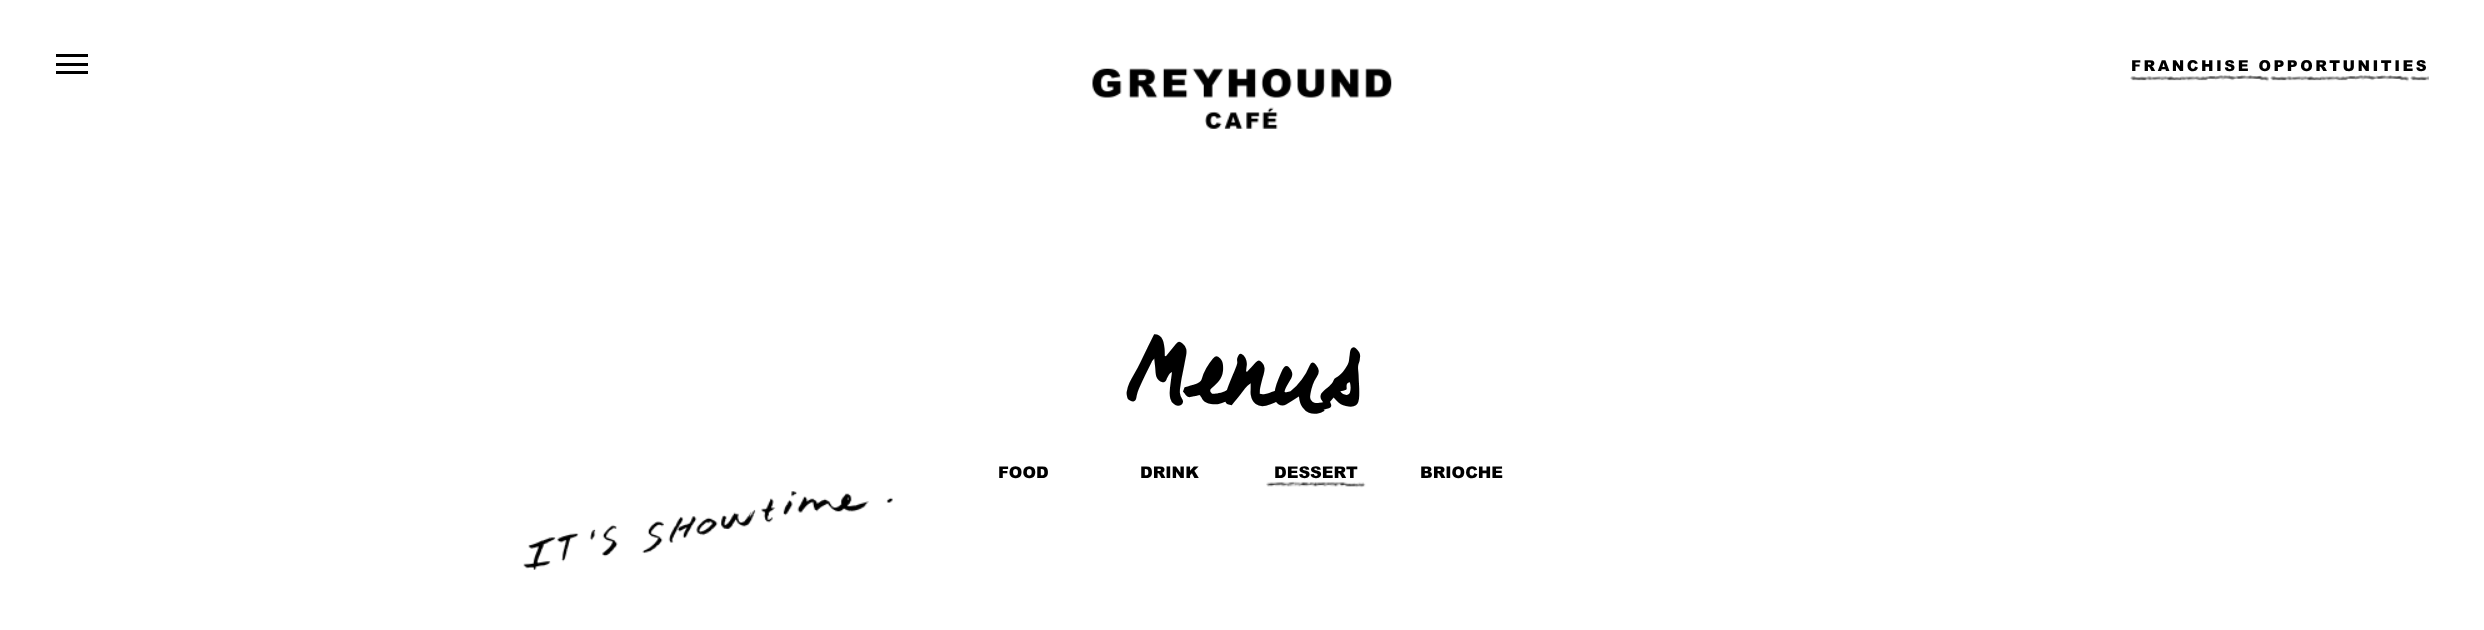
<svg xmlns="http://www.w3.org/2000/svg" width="2484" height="630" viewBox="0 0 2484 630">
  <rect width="100%" height="100%" fill="rgb(255,255,255)"/>
  <rect x="56" y="63" width="32" height="3" fill="rgb(0,0,0)"/>
  <rect x="56" y="54" width="32" height="3" fill="rgb(0,0,0)"/>
  <rect x="56" y="71" width="32" height="3" fill="rgb(0,0,0)"/>
  <image x="2130" y="75" width="299" height="7" href="pic1.png"/>
  <text x="2131" y="71" font-family="Arial" font-size="15" font-weight="900" letter-spacing="2.5" fill="rgb(0,0,0)">FRANCHISE OPPORTUNITIES</text>
  <image x="1092" y="68" width="300" height="61" href="pic2.png"/>
  <text x="1122" y="403" font-family="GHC" font-size="90" font-weight="bold" fill="rgb(0,0,0)">Menus</text>
  <g font-family="Arial" font-size="16.25" font-weight="900" fill="rgb(0,0,0)">
    <text x="998" y="478">FOOD</text>
    <text x="1140" y="478">DRINK</text>
  </g>
  <image x="1266" y="481" width="100" height="7" href="pic3.png"/>
  <g font-family="Arial" font-size="16.25" font-weight="900" fill="rgb(0,0,0)">
    <text x="1274" y="478">DESSERT</text>
    <text x="1420" y="478">BRIOCHE</text>
  </g>
  <image x="523" y="491" width="370" height="79" href="pic4.png"/>
</svg>
